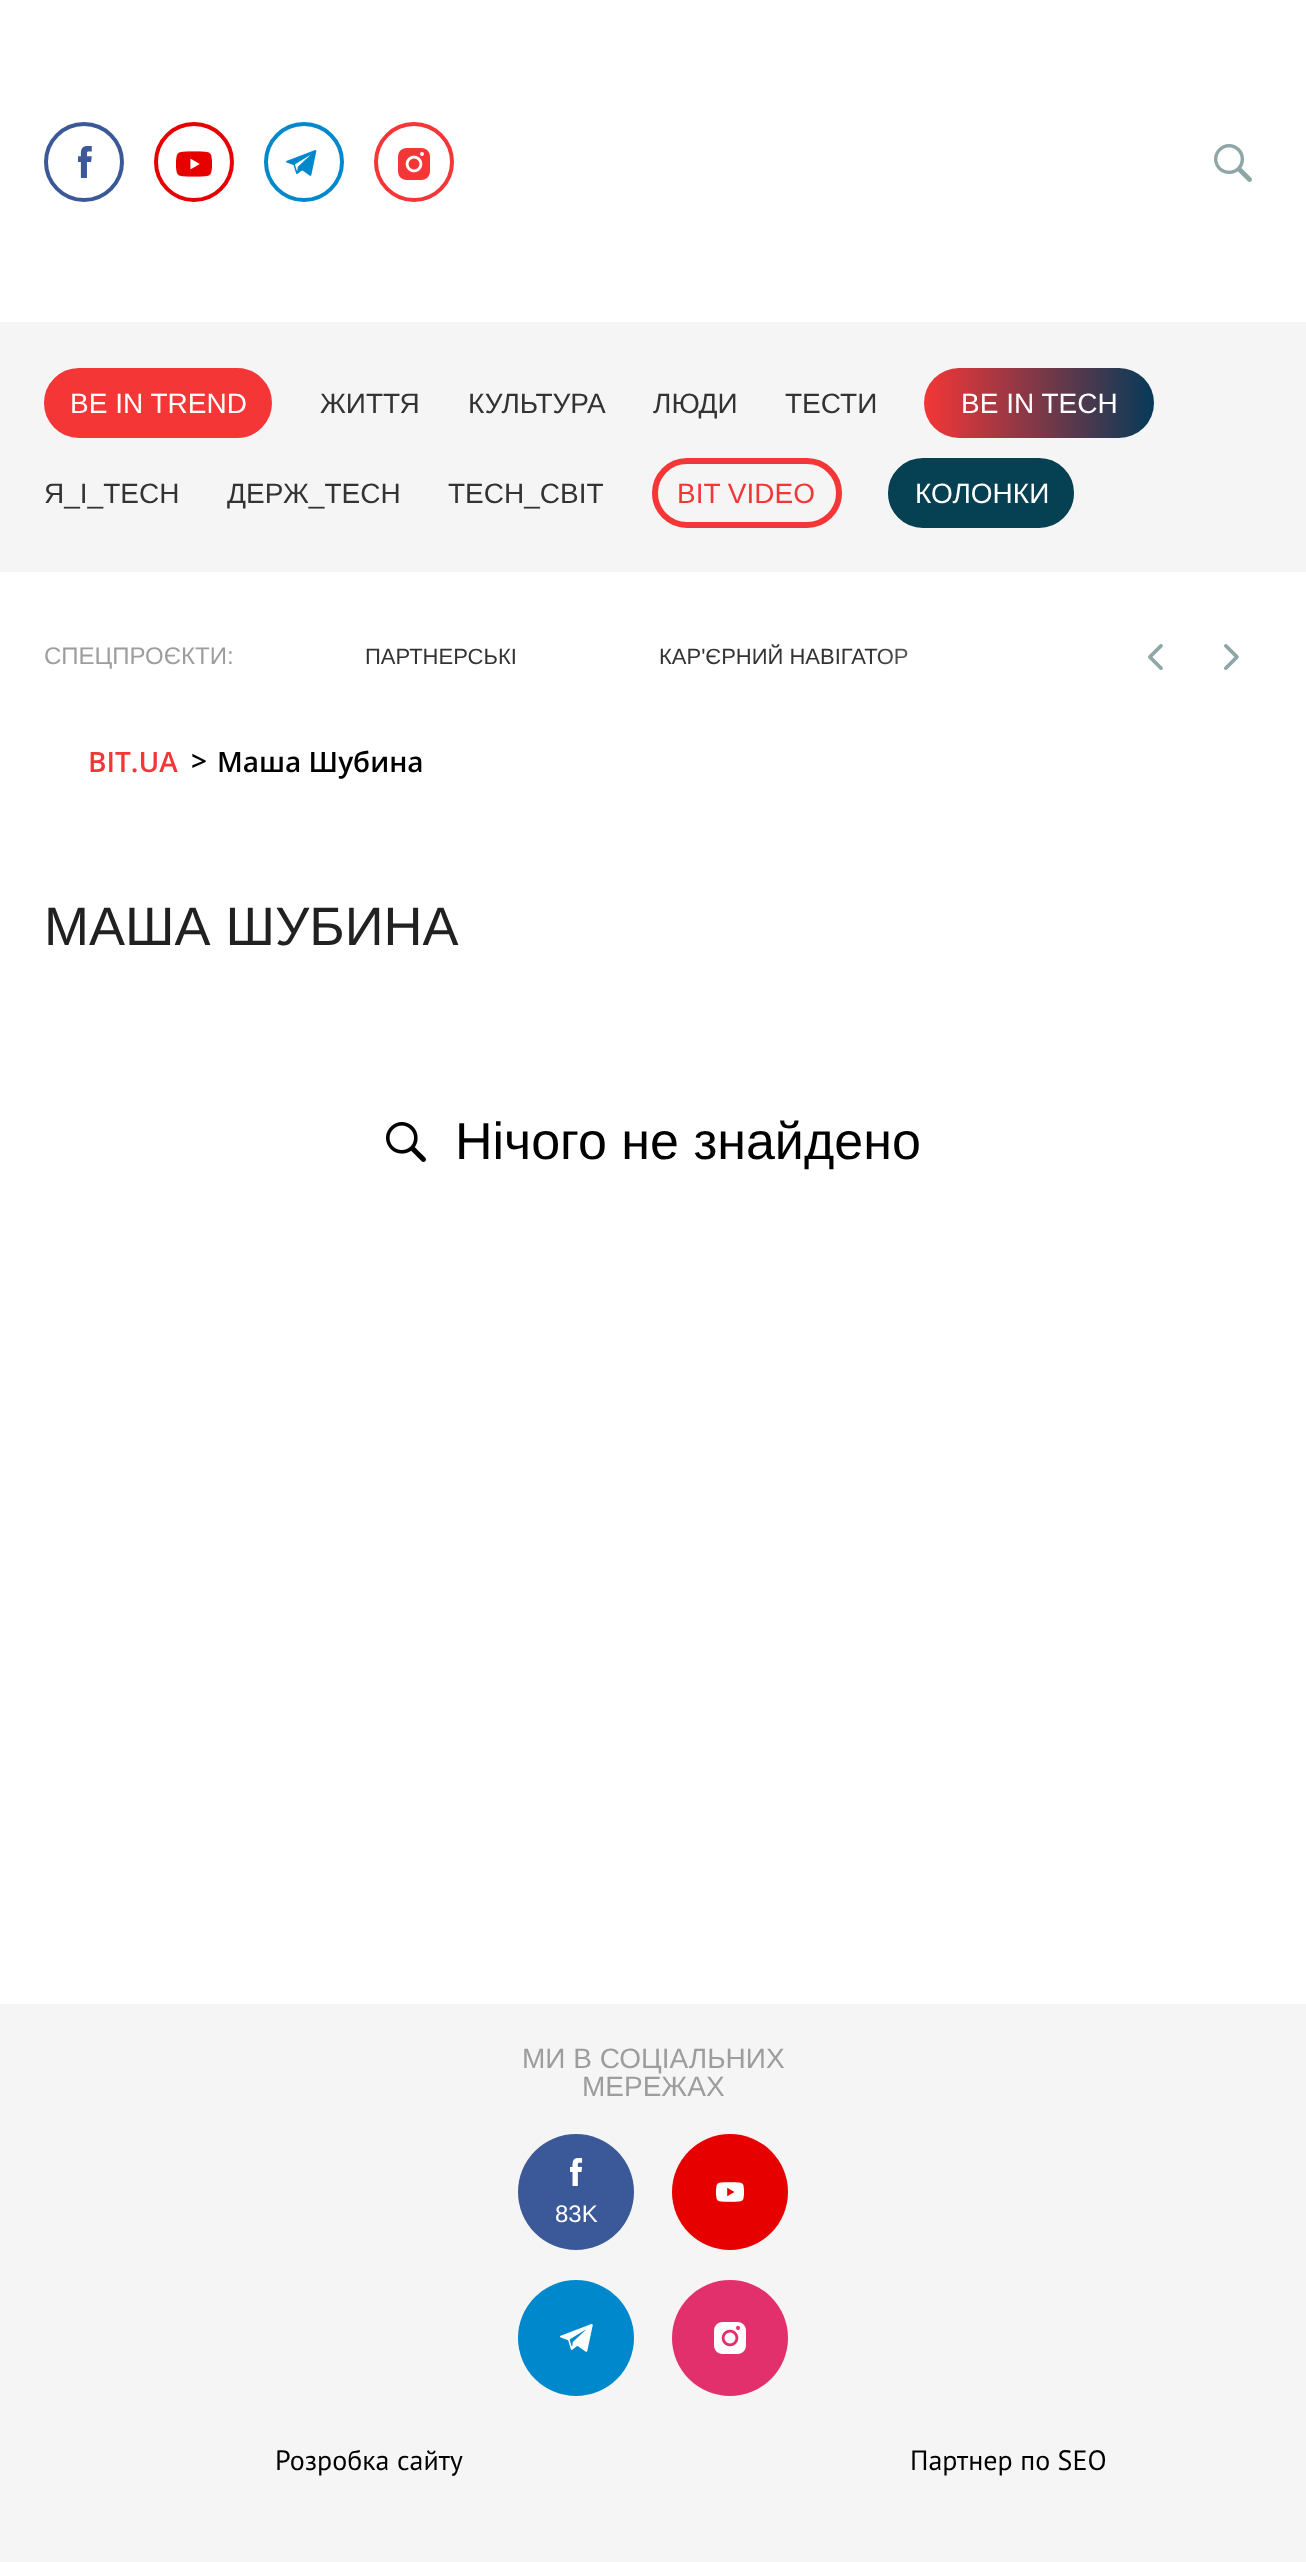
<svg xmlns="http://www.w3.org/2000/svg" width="1306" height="2562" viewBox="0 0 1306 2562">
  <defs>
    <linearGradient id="g1" gradientUnits="userSpaceOnUse" x1="924" y1="403" x2="1154" y2="403"><stop offset="0" stop-color="rgb(244,54,55)"/><stop offset="1" stop-color="rgb(5,58,88)"/></linearGradient>
    <linearGradient id="g2" gradientUnits="userSpaceOnUse" x1="872" y1="657" x2="1072" y2="657"><stop offset="0" stop-color="rgb(255,254,255)" stop-opacity="0"/><stop offset="1" stop-color="rgb(255,254,255)"/></linearGradient>
  </defs>
  <rect width="100%" height="100%" fill="rgb(255,255,255)"/>
  <circle cx="84" cy="162" r="38" fill="none" stroke="rgb(59,89,152)" stroke-width="4"/>
  <image x="78" y="146" width="14" height="32" href="pic1.png"/>
  <circle cx="194" cy="162" r="38" fill="none" stroke="rgb(230,0,0)" stroke-width="4"/>
  <image x="176" y="151" width="36" height="26" href="pic2.png"/>
  <circle cx="304" cy="162" r="38" fill="none" stroke="rgb(0,136,204)" stroke-width="4"/>
  <image x="286" y="150" width="31" height="26" href="pic3.png"/>
  <circle cx="414" cy="162" r="38" fill="none" stroke="rgb(244,54,55)" stroke-width="4"/>
  <image x="398" y="148" width="32" height="32" href="pic4.png"/>
  <image x="1214" y="144" width="38" height="38" href="pic5.png"/>
  <rect x="0" y="322" width="1306" height="250" fill="rgb(245,245,245)"/>
  <rect x="47" y="371" width="222" height="64" rx="32" fill="rgb(244,54,55)" stroke="rgb(244,54,55)" stroke-width="6"/>
  <text x="70" y="413" font-family="Liberation Sans" font-size="28" fill="rgb(255,255,255)">BE IN TREND</text>
  <g font-family="Liberation Sans" font-size="28" fill="rgb(51,51,51)">
    <text x="320" y="413">ЖИТТЯ</text>
    <text x="468" y="413">КУЛЬТУРА</text>
    <text x="653" y="413">ЛЮДИ</text>
    <text x="785" y="413">ТЕСТИ</text>
  </g>
  <rect x="924" y="368" width="230" height="70" rx="35" fill="url(#g1)"/>
  <text x="961" y="413" font-family="Liberation Sans" font-size="28" fill="rgb(255,255,255)">BE IN TECH</text>
  <g font-family="Liberation Sans" font-size="28" fill="rgb(51,51,51)">
    <text x="44" y="503">Я_І_TECH</text>
    <text x="227" y="503">ДЕРЖ_TECH</text>
    <text x="448" y="503">TECH_СВІТ</text>
  </g>
  <rect x="655" y="461" width="184" height="64" rx="32" fill="none" stroke="rgb(244,54,55)" stroke-width="6"/>
  <text x="677" y="503" font-family="Liberation Sans" font-size="28" fill="rgb(244,54,55)">BIT VIDEO</text>
  <rect x="891" y="461" width="180" height="64" rx="32" fill="rgb(5,64,83)" stroke="rgb(5,64,83)" stroke-width="6"/>
  <text x="915" y="503" font-family="Liberation Sans" font-size="28" fill="rgb(255,255,255)">КОЛОНКИ</text>
  <text x="44" y="664" font-family="Liberation Sans" font-size="24" fill="rgb(157,157,157)">СПЕЦПРОЄКТИ:</text>
  <g font-family="Liberation Sans" font-size="22" fill="rgb(51,51,51)">
    <text x="365" y="664">ПАРТНЕРСЬКІ</text>
    <text x="659" y="664">КАР'ЄРНИЙ НАВІГАТОР</text>
  </g>
  <image x="1148" y="644" width="15" height="26" href="pic6.png"/>
  <image x="1224" y="644" width="15" height="26" href="pic7.png"/>
  <rect x="876" y="648" width="31" height="16" fill="url(#g2)"/>
  <text x="88" y="772" font-family="Open Sans" font-size="28" font-weight="600" fill="rgb(244,54,55)">BIT.UA</text>
  <g font-family="Open Sans" font-size="28" font-weight="600" fill="rgb(0,0,0)">
    <text x="191" y="771">&gt;</text>
    <text x="217" y="772">Маша Шубина</text>
  </g>
  <text x="44" y="945" font-family="Liberation Sans" font-size="54" fill="rgb(33,33,33)">МАША ШУБИНА</text>
  <image x="386" y="1122" width="40" height="40" href="pic8.png"/>
  <text x="455" y="1159" font-family="Liberation Sans" font-size="52" fill="rgb(0,0,0)">Нічого не знайдено</text>
  <rect x="0" y="2004" width="1306" height="558" fill="rgb(245,245,245)"/>
  <g font-family="Liberation Sans" font-size="28" fill="rgb(157,157,157)">
    <text x="522" y="2068">МИ В СОЦІАЛЬНИХ</text>
    <text x="582" y="2096">МЕРЕЖАХ</text>
  </g>
  <circle cx="576" cy="2192" r="58" fill="rgb(59,89,152)"/>
  <image x="570" y="2158" width="13" height="28" href="pic9.png"/>
  <text x="555" y="2222" font-family="Liberation Sans" font-size="24" fill="rgb(255,255,255)">83K</text>
  <circle cx="730" cy="2192" r="58" fill="rgb(230,0,0)"/>
  <image x="716" y="2182" width="28" height="20" href="pic10.png"/>
  <circle cx="576" cy="2338" r="58" fill="rgb(0,136,204)"/>
  <image x="560" y="2324" width="33" height="28" href="pic11.png"/>
  <circle cx="730" cy="2338" r="58" fill="rgb(225,48,108)"/>
  <image x="714" y="2322" width="32" height="32" href="pic12.png"/>
  <g font-family="PT Sans" font-size="28" fill="rgb(0,0,0)">
    <text x="275" y="2470">Розробка сайту</text>
    <text x="910" y="2470">Партнер по SEO</text>
  </g>
</svg>
